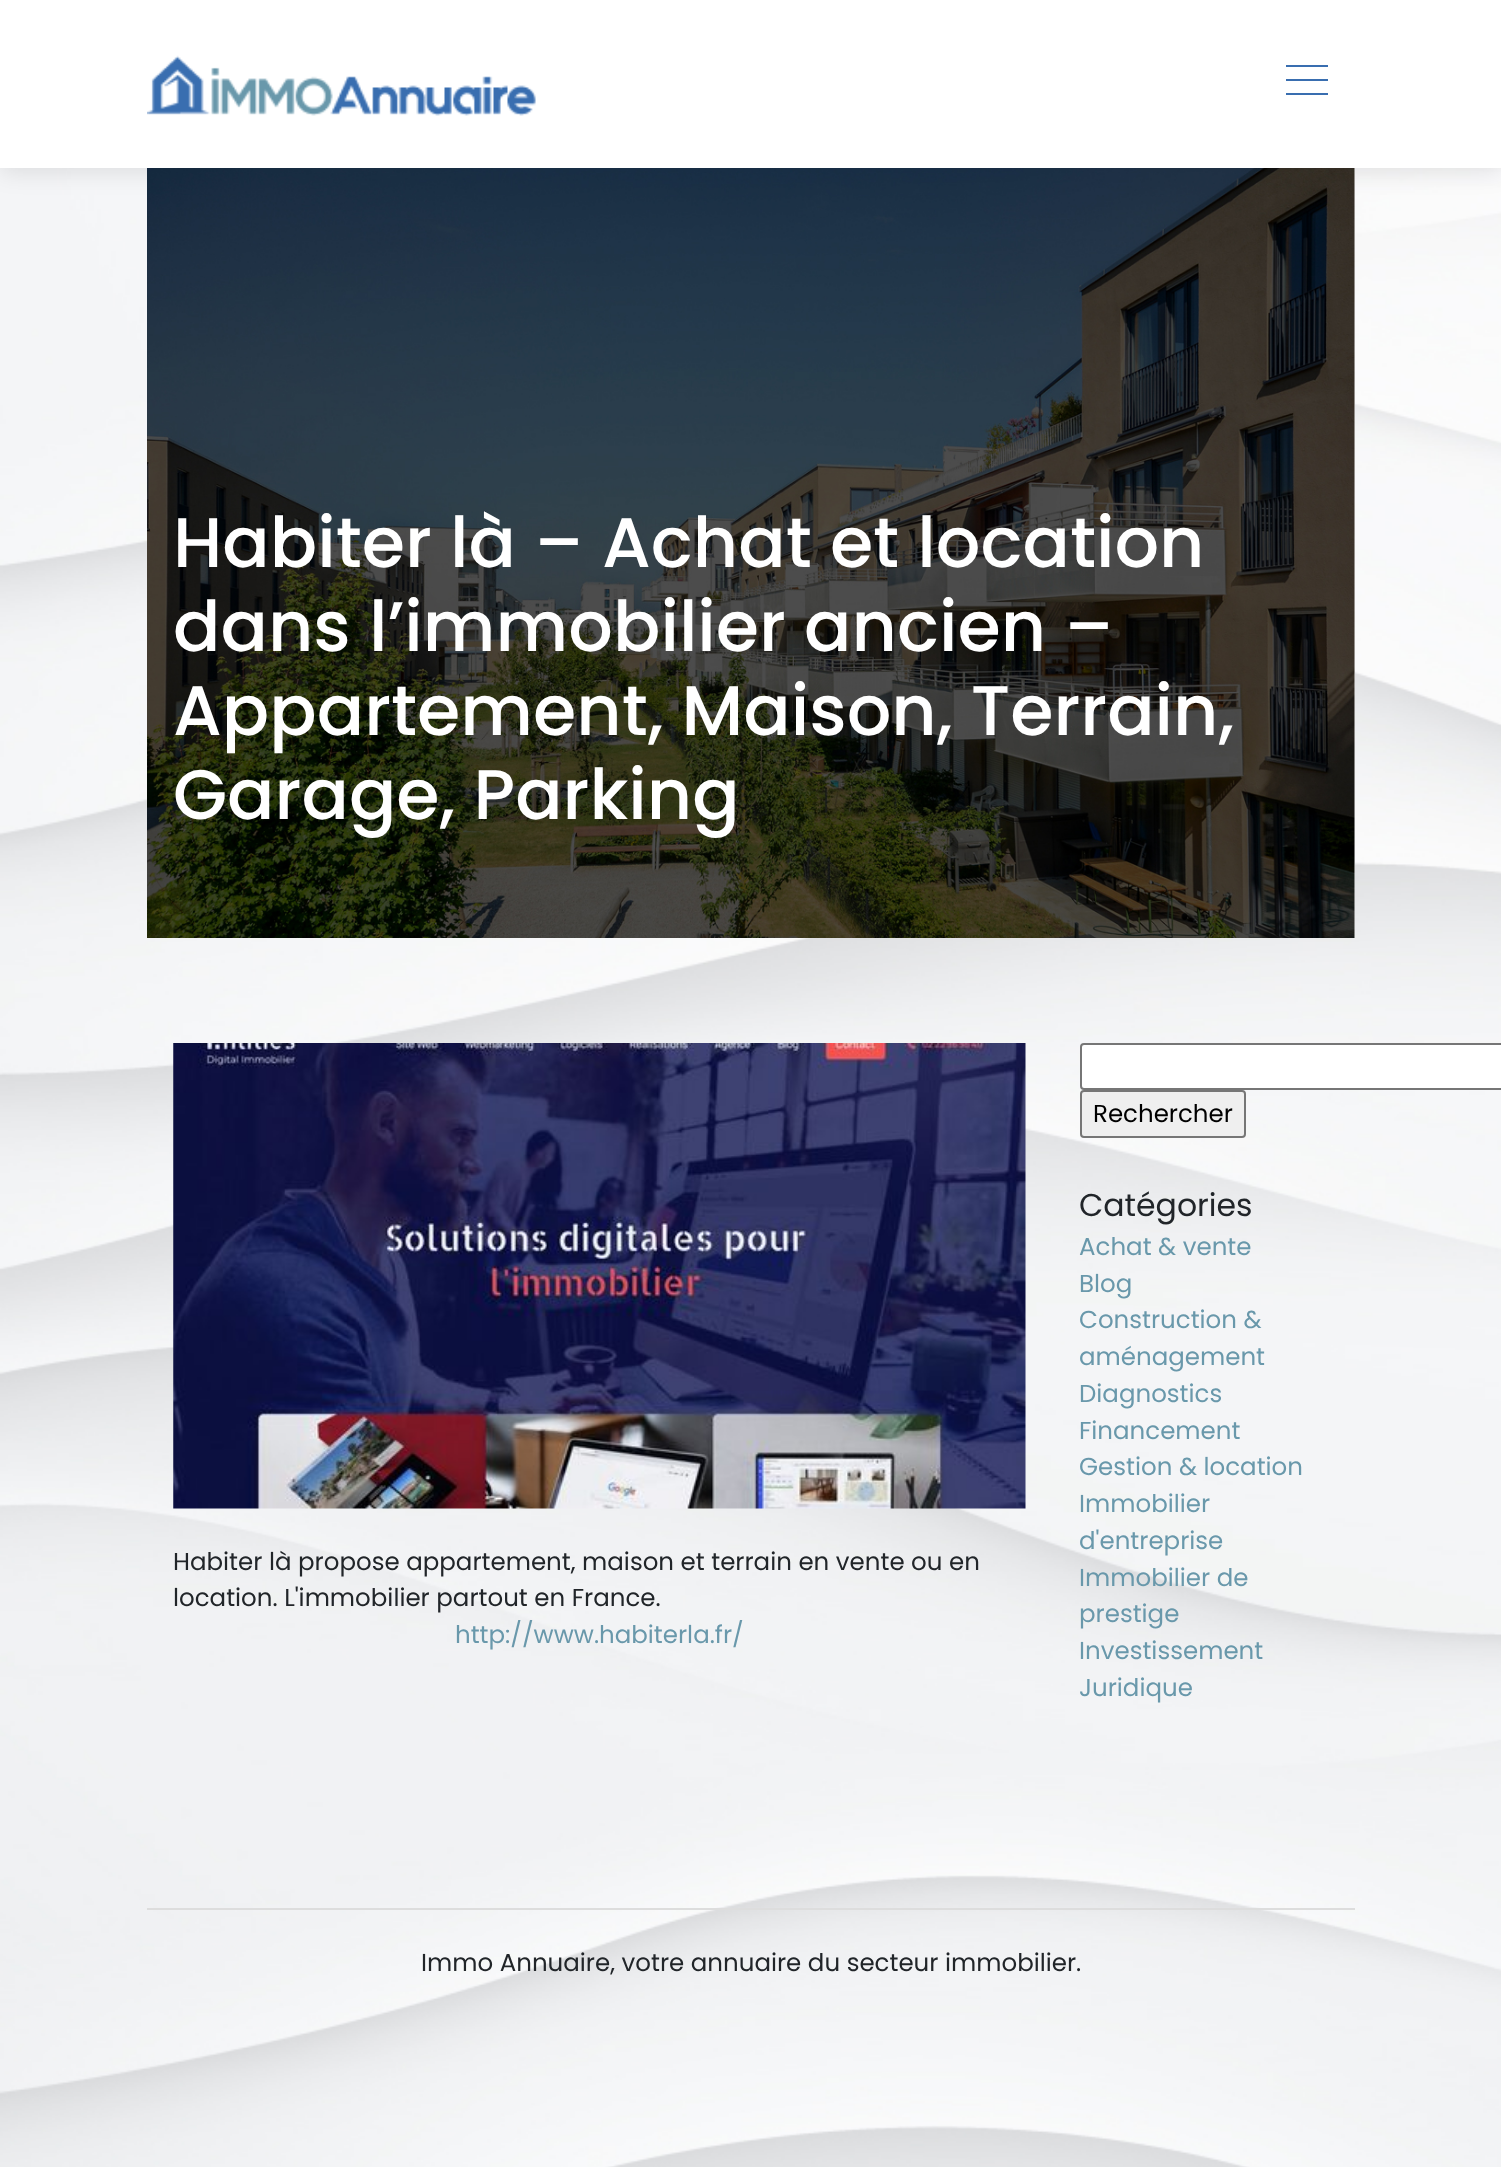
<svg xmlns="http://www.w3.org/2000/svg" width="1501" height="2167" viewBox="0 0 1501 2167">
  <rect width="100%" height="100%" fill="rgb(255,255,255)"/>
  <image x="0" y="168" width="1501" height="1999" href="pic1.png"/>
  <rect x="0" y="4" width="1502" height="168" fill="rgba(0,0,0,0.1)" filter="blur(11.5px)"/>
  <rect x="0" y="0" width="1501" height="168" fill="rgb(255,255,255)"/>
  <image x="147" y="55" width="389" height="61" href="pic2.png"/>
  <rect x="1286" y="65" width="42" height="2" fill="rgb(57,110,176)"/>
  <rect x="1286" y="79" width="42" height="2" fill="rgb(57,110,176)"/>
  <rect x="1286" y="93" width="42" height="2" fill="rgb(57,110,176)"/>
  <rect x="1354" y="168" width="1" height="770" fill="rgb(238,238,238)"/>
  <image x="147" y="168" width="1208" height="770" href="pic3.png"/>
  <g font-family="Poppins" font-size="70" font-weight="500" fill="rgb(255,255,255)">
    <text>
      <tspan x="173" y="567">Habiter là – Achat et location</tspan>
      <tspan x="173" y="651">dans l’immobilier ancien –</tspan>
      <tspan x="173" y="735">Appartement, Maison, Terrain,</tspan>
      <tspan x="173" y="819">Garage, Parking</tspan>
    </text>
  </g>
  <image x="173" y="1043" width="853" height="466" href="pic4.png"/>
  <g font-family="Poppins" font-size="24.5" fill="rgb(33,37,41)">
    <text>
      <tspan x="173" y="1570">Habiter là propose appartement, maison et terrain en vente ou en</tspan>
      <tspan x="173" y="1606">location. L'immobilier partout en France.</tspan>
    </text>
  </g>
  <text x="455" y="1643" font-family="Poppins" font-size="24.5" fill="rgb(105,152,171)">http://www.habiterla.fr/</text>
  <rect x="1081" y="1044" width="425" height="45" rx="3" fill="rgb(255,255,255)" stroke="rgb(118,118,118)" stroke-width="2"/>
  <rect x="1081" y="1091" width="164" height="46" rx="3" fill="rgb(239,239,239)" stroke="rgb(118,118,118)" stroke-width="2"/>
  <text x="1093" y="1122" font-family="Poppins" font-size="24.5" fill="rgb(0,0,0)">Rechercher</text>
  <text x="1079" y="1216" font-family="Poppins" font-size="31.5" fill="rgb(33,37,41)">Catégories</text>
  <g font-family="Poppins" font-size="24.5" fill="rgb(105,152,171)">
    <text>
      <tspan x="1079" y="1255">Achat &amp; vente</tspan>
      <tspan x="1079" y="1292">Blog</tspan>
      <tspan x="1079" y="1328">Construction &amp;</tspan>
      <tspan x="1079" y="1365">aménagement</tspan>
      <tspan x="1079" y="1402">Diagnostics</tspan>
      <tspan x="1079" y="1439">Financement</tspan>
      <tspan x="1079" y="1475">Gestion &amp; location</tspan>
      <tspan x="1079" y="1512">Immobilier</tspan>
      <tspan x="1079" y="1549">d'entreprise</tspan>
      <tspan x="1079" y="1586">Immobilier de</tspan>
      <tspan x="1079" y="1622">prestige</tspan>
      <tspan x="1079" y="1659">Investissement</tspan>
      <tspan x="1079" y="1696">Juridique</tspan>
    </text>
  </g>
  <rect x="147" y="1908" width="1208" height="2" fill="rgb(221,221,221)"/>
  <text x="421" y="1971" font-family="Poppins" font-size="24.5" fill="rgb(33,37,41)">Immo Annuaire, votre annuaire du secteur immobilier.</text>
</svg>
